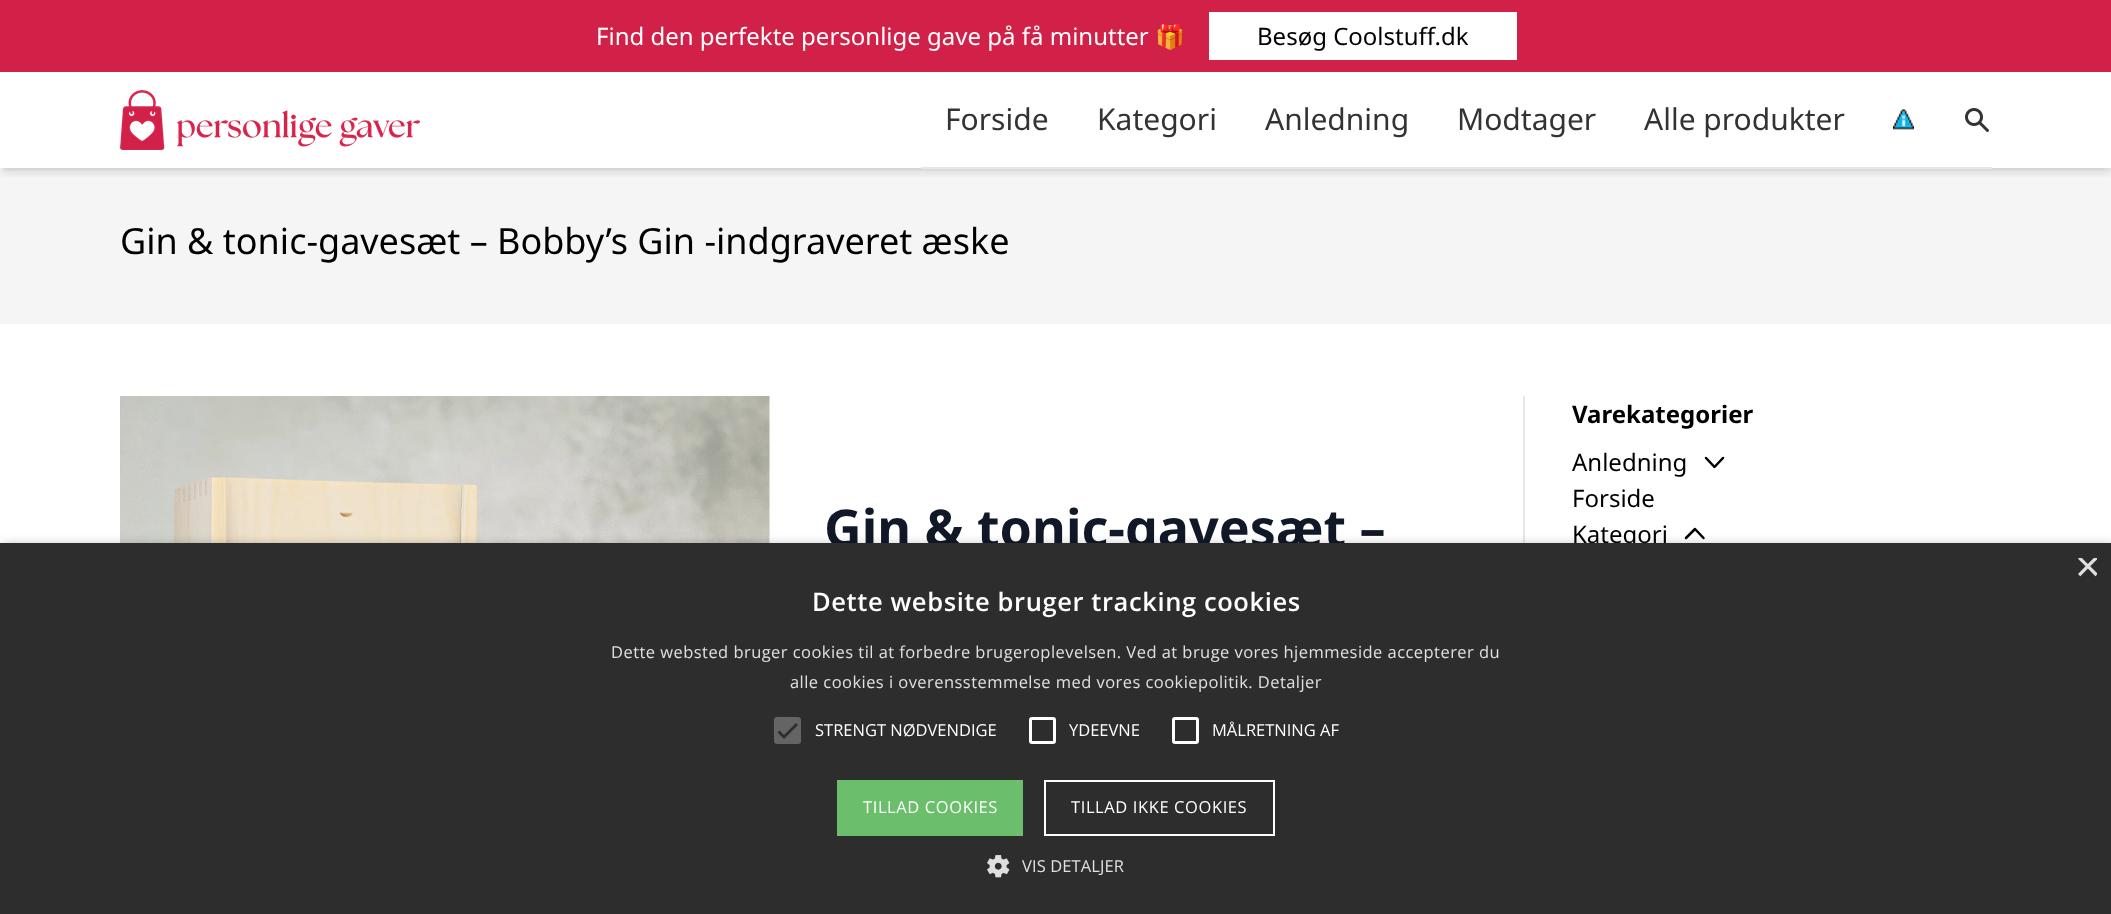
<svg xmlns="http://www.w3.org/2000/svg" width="2111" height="914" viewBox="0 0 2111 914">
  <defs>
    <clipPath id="clip1"><rect x="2" y="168" width="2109" height="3"/></clipPath>
    <clipPath id="clip2"><rect x="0" y="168" width="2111" height="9"/></clipPath>
    <clipPath id="clip3"><rect x="2075" y="558" width="22" height="23"/></clipPath>
  </defs>
  <rect width="100%" height="100%" fill="rgb(255,255,255)"/>
  <rect x="0" y="168" width="2111" height="156" fill="rgb(245,245,245)"/>
  <g clip-path="url(#clip1)">
    <rect x="2" y="5" width="2109" height="165" fill="rgba(0,0,0,0.06)" filter="blur(3px)"/>
  </g>
  <g clip-path="url(#clip2)">
    <rect x="2" y="8" width="2109" height="165" fill="rgba(0,0,0,0.1)" filter="blur(4.5px)"/>
  </g>
  <rect x="0" y="0" width="2111" height="72" fill="rgb(209,33,72)"/>
  <text x="596" y="45" font-family="Noto Sans" font-size="24" fill="rgb(255,255,255)">Find den perfekte personlige gave på få minutter</text>
  <text x="1155" y="45" font-family="Noto Color Emoji" font-size="24" fill="rgb(255,255,255)">🎁</text>
  <rect x="1209" y="12" width="308" height="48" fill="rgb(255,255,255)"/>
  <text x="1257" y="45" font-family="Noto Sans" font-size="24" fill="rgb(0,0,0)">Besøg Coolstuff.dk</text>
  <image x="120" y="90" width="300" height="60" href="pic1.png"/>
  <rect x="921" y="167" width="1071" height="2" fill="rgb(229,231,235)"/>
  <g font-family="Noto Sans" font-size="30" fill="rgb(51,51,51)">
    <text x="945" y="130">Forside</text>
    <text x="1097" y="130">Kategori</text>
    <text x="1265" y="130">Anledning</text>
    <text x="1457" y="130">Modtager</text>
    <text x="1644" y="130">Alle produkter</text>
  </g>
  <image x="1893" y="109" width="21" height="21" href="pic2.png"/>
  <image x="1965" y="108" width="24" height="24" href="pic3.png"/>
  <text x="120" y="254" font-family="Noto Sans" font-size="36" fill="rgb(0,0,0)">Gin &amp; tonic-gavesæt – Bobby’s Gin -indgraveret æske</text>
  <rect x="1523" y="396" width="2" height="147" fill="rgb(229,231,235)"/>
  <image x="120" y="396" width="650" height="147" href="pic4.png"/>
  <text x="824" y="547" font-family="Noto Sans" font-size="52" font-weight="bold" fill="rgb(17,24,39)">Gin &amp; tonic-gavesæt –</text>
  <text x="1572" y="423" font-family="Noto Sans" font-size="24" font-weight="bold" fill="rgb(0,0,0)">Varekategorier</text>
  <text x="1572" y="471" font-family="Noto Sans" font-size="24" fill="rgb(0,0,0)">Anledning</text>
  <path d="M1723 458L1714.5 467L1706 458" fill="none" stroke="rgb(0,0,0)" stroke-width="2.5" stroke-linecap="round" stroke-linejoin="round"/>
  <g font-family="Noto Sans" font-size="24" fill="rgb(0,0,0)">
    <text>
      <tspan x="1572" y="507">Forside</tspan>
      <tspan x="1572" y="543">Kategori</tspan>
    </text>
  </g>
  <path d="M1686 538L1695 529L1703.5 538" fill="none" stroke="rgb(0,0,0)" stroke-width="2.5" stroke-linecap="round" stroke-linejoin="round"/>
  <rect x="2" y="546" width="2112" height="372" fill="rgba(0,0,0,0.35)" filter="blur(6px)"/>
  <rect x="0" y="543" width="2111" height="371" fill="rgb(45,45,45)"/>
  <g clip-path="url(#clip3)">
    <text x="2075" y="581" font-family="Liberation Sans" font-size="44" fill="rgb(224,224,224)">×</text>
  </g>
  <text x="812" y="611" font-family="Open Sans" font-size="25.5" font-weight="600" letter-spacing="0.6" fill="rgb(255,255,255)">Dette website bruger tracking cookies</text>
  <g font-family="Open Sans" font-size="16.5" letter-spacing="0.45" fill="rgb(224,224,224)">
    <text x="611" y="658">Dette websted bruger cookies til at forbedre brugeroplevelsen. Ved at bruge vores hjemmeside accepterer du</text>
    <text x="790" y="688">alle cookies i overensstemmelse med vores cookiepolitik. Detaljer</text>
  </g>
  <rect x="774" y="717" width="27" height="27" rx="3" fill="rgb(100,100,100)"/>
  <path d="M778.5 731.5L784 737L797 724" fill="none" stroke="rgb(45,45,45)" stroke-width="2.7"/>
  <text x="815" y="736" font-family="Open Sans" font-size="16.5" fill="rgb(255,255,255)">STRENGT NØDVENDIGE</text>
  <rect x="1030.5" y="718.5" width="24" height="24" rx="1.5" fill="none" stroke="rgb(255,255,255)" stroke-width="3"/>
  <text x="1069" y="736" font-family="Open Sans" font-size="16.5" fill="rgb(255,255,255)">YDEEVNE</text>
  <rect x="1173.5" y="718.5" width="24" height="24" rx="1.5" fill="none" stroke="rgb(255,255,255)" stroke-width="3"/>
  <text x="1212" y="736" font-family="Open Sans" font-size="16.5" fill="rgb(255,255,255)">MÅLRETNING AF</text>
  <rect x="837" y="780" width="186" height="56" fill="rgb(107,190,107)"/>
  <text x="863" y="813" font-family="Open Sans" font-size="16.5" letter-spacing="0.6" fill="rgb(255,255,255)">TILLAD COOKIES</text>
  <rect x="1045" y="781" width="229" height="54" fill="none" stroke="rgb(255,255,255)" stroke-width="2"/>
  <text x="1071" y="813" font-family="Open Sans" font-size="16.5" letter-spacing="0.6" fill="rgb(255,255,255)">TILLAD IKKE COOKIES</text>
  <image x="987" y="855" width="23" height="23" href="pic5.png"/>
  <text x="1022" y="872" font-family="Open Sans" font-size="16.5" letter-spacing="0.1" fill="rgb(224,224,224)">VIS DETALJER</text>
</svg>
